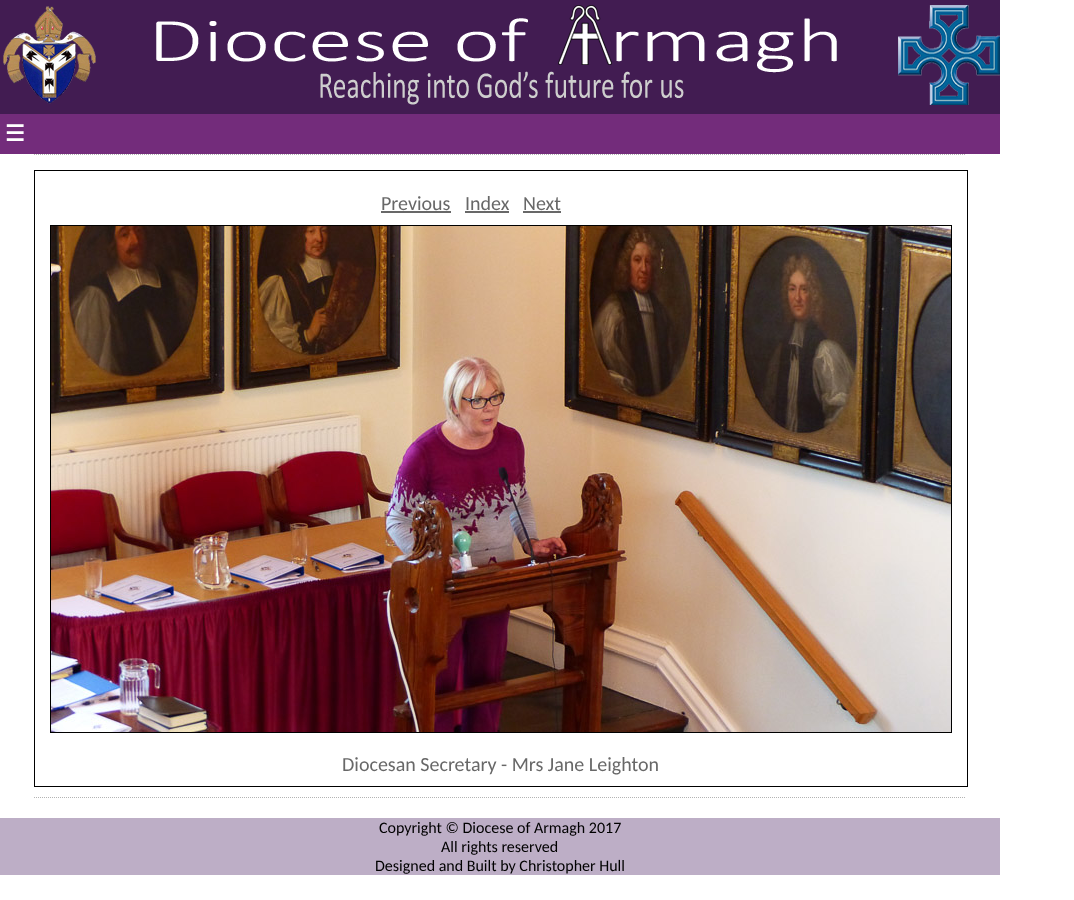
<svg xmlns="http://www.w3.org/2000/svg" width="1074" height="900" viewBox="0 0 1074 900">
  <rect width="100%" height="100%" fill="rgb(255,255,255)"/>
  <rect x="0" y="0" width="1000" height="114" fill="rgb(66,28,82)"/>
  <image x="3" y="5" width="997" height="100" href="pic1.png"/>
  <rect x="0" y="114" width="1000" height="40" fill="rgb(115,44,123)"/>
  <text x="5" y="141" font-family="DejaVu Sans" font-size="22" font-weight="bold" fill="rgb(255,255,255)">☰</text>
  <path d="M34 154.5H966" fill="none" stroke="rgb(179,179,179)" stroke-dasharray="1 1"/>
  <path d="M34 797.5H966" fill="none" stroke="rgb(179,179,179)" stroke-dasharray="1 1"/>
  <rect x="34.5" y="170.5" width="933" height="616" fill="none" stroke="rgb(0,0,0)"/>
  <text x="381" y="210" font-family="Carlito" font-size="20" fill="rgb(104,104,104)">Previous</text>
  <rect x="381" y="211" width="70" height="2" fill="rgb(104,104,104)"/>
  <text x="465" y="210" font-family="Carlito" font-size="20" fill="rgb(104,104,104)">Index</text>
  <rect x="465" y="211" width="44" height="2" fill="rgb(104,104,104)"/>
  <text x="523" y="210" font-family="Carlito" font-size="20" fill="rgb(104,104,104)">Next</text>
  <rect x="523" y="211" width="38" height="2" fill="rgb(104,104,104)"/>
  <rect x="50.5" y="225.5" width="901" height="507" fill="none" stroke="rgb(0,0,0)"/>
  <image x="51" y="226" width="900" height="506" href="pic2.png"/>
  <text x="342" y="771" font-family="Carlito" font-size="20" fill="rgb(104,104,104)">Diocesan Secretary - Mrs Jane Leighton</text>
  <rect x="0" y="818" width="1000" height="57" fill="rgb(189,174,198)"/>
  <g font-family="Carlito" font-size="16" fill="rgb(0,0,0)">
    <text x="379" y="833">Copyright © Diocese of Armagh 2017</text>
    <text x="441" y="852">All rights reserved</text>
    <text x="375" y="871">Designed and Built by Christopher Hull</text>
  </g>
</svg>
